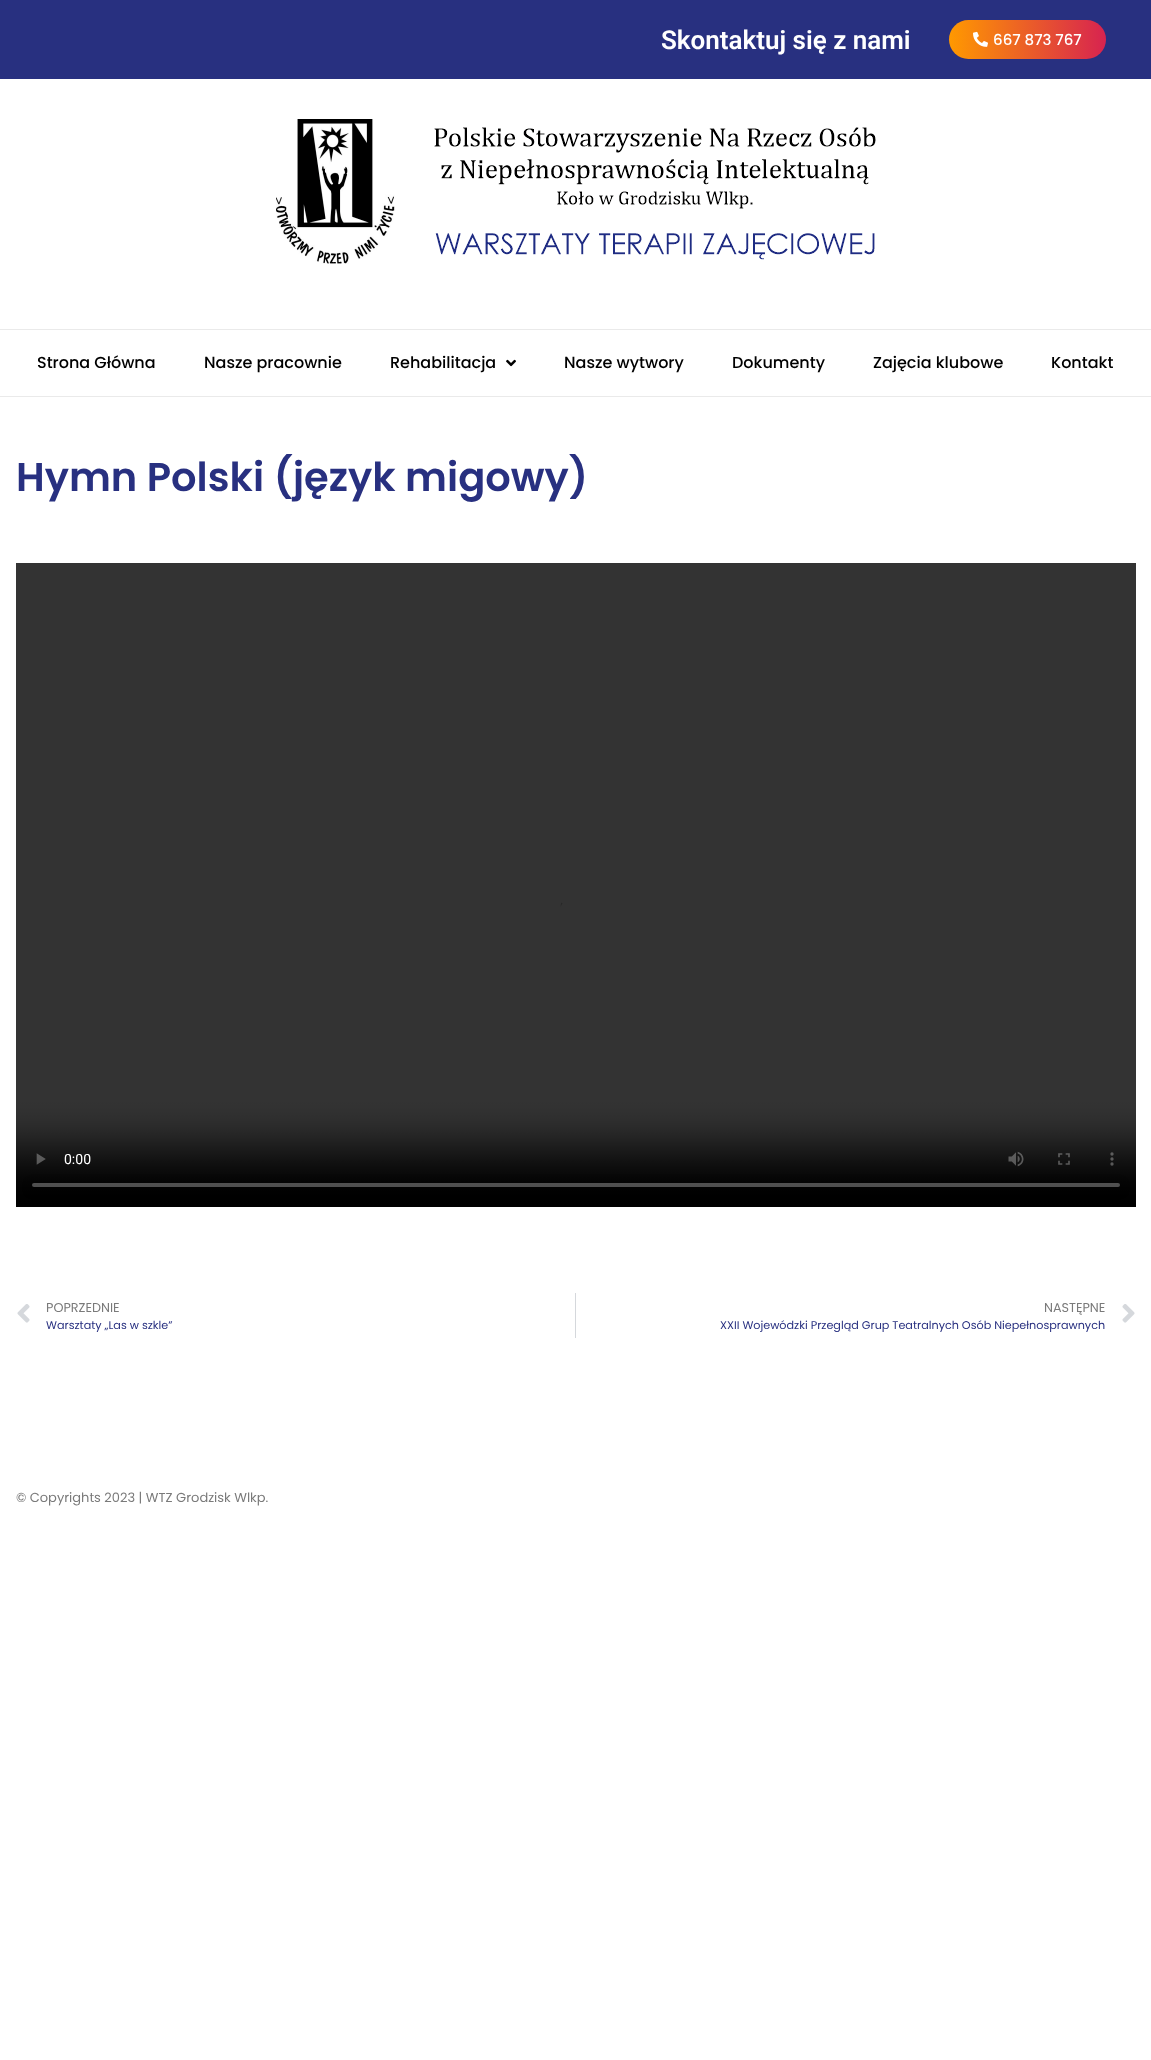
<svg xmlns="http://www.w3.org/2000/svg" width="1151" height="2060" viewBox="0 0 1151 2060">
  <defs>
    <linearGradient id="g1" gradientUnits="userSpaceOnUse" x1="949" y1="40" x2="1106" y2="39"><stop offset="0" stop-color="rgb(255,153,0)"/><stop offset="1" stop-color="rgb(215,35,80)"/></linearGradient>
  </defs>
  <rect width="100%" height="100%" fill="rgb(255,255,255)"/>
  <rect x="0" y="0" width="1151" height="79" fill="rgb(40,48,128)"/>
  <text x="661" y="49" font-family="Roboto" font-size="26" font-weight="600" fill="rgb(255,255,255)">Skontaktuj się z nami</text>
  <rect x="949" y="20" width="157" height="39" rx="19.5" fill="url(#g1)"/>
  <image x="973" y="31" width="15" height="16" href="pic1.png"/>
  <text x="993" y="45" font-family="Poppins" font-size="15" font-weight="500" fill="rgb(255,255,255)">667 873 767</text>
  <image x="276" y="119" width="600" height="145" href="pic2.png"/>
  <rect x="0" y="329" width="1151" height="1" fill="rgb(234,234,234)"/>
  <rect x="0" y="396" width="1151" height="1" fill="rgb(234,234,234)"/>
  <g font-family="Poppins" font-size="16" font-weight="500" fill="rgb(0,0,0)">
    <text x="37" y="368">Strona Główna</text>
    <text x="204" y="368">Nasze pracownie</text>
    <text x="390" y="368">Rehabilitacja</text>
  </g>
  <image x="506" y="359" width="10" height="8" href="pic3.png"/>
  <g font-family="Poppins" font-size="16" font-weight="500" fill="rgb(0,0,0)">
    <text x="564" y="368">Nasze wytwory</text>
    <text x="732" y="368">Dokumenty</text>
    <text x="873" y="368">Zajęcia klubowe</text>
    <text x="1051" y="368">Kontakt</text>
  </g>
  <text x="16" y="491" font-family="Poppins" font-size="40" font-weight="600" fill="rgb(40,48,128)">Hymn Polski (język migowy)</text>
  <image x="16" y="563" width="1120" height="644" href="pic4.png"/>
  <image x="17" y="1304" width="13" height="19" href="pic5.png"/>
  <text x="46" y="1312" font-family="Poppins" font-size="12.75" fill="rgb(122,122,122)">POPRZEDNIE</text>
  <text x="46" y="1329" font-family="Poppins" font-size="11.2" fill="rgb(40,48,128)">Warsztaty „Las w szkle”</text>
  <rect x="575" y="1293" width="1" height="45" fill="rgb(213,216,220)"/>
  <text x="1044" y="1312" font-family="Poppins" font-size="12.75" fill="rgb(122,122,122)">NASTĘPNE</text>
  <text x="720" y="1329" font-family="Poppins" font-size="11.2" fill="rgb(40,48,128)">XXII Wojewódzki Przegląd Grup Teatralnych Osób Niepełnosprawnych</text>
  <image x="1122" y="1304" width="13" height="19" href="pic6.png"/>
  <text x="16" y="1502" font-family="Poppins" font-size="13" fill="rgb(122,122,122)">© Copyrights 2023 | WTZ Grodzisk Wlkp.</text>
</svg>
